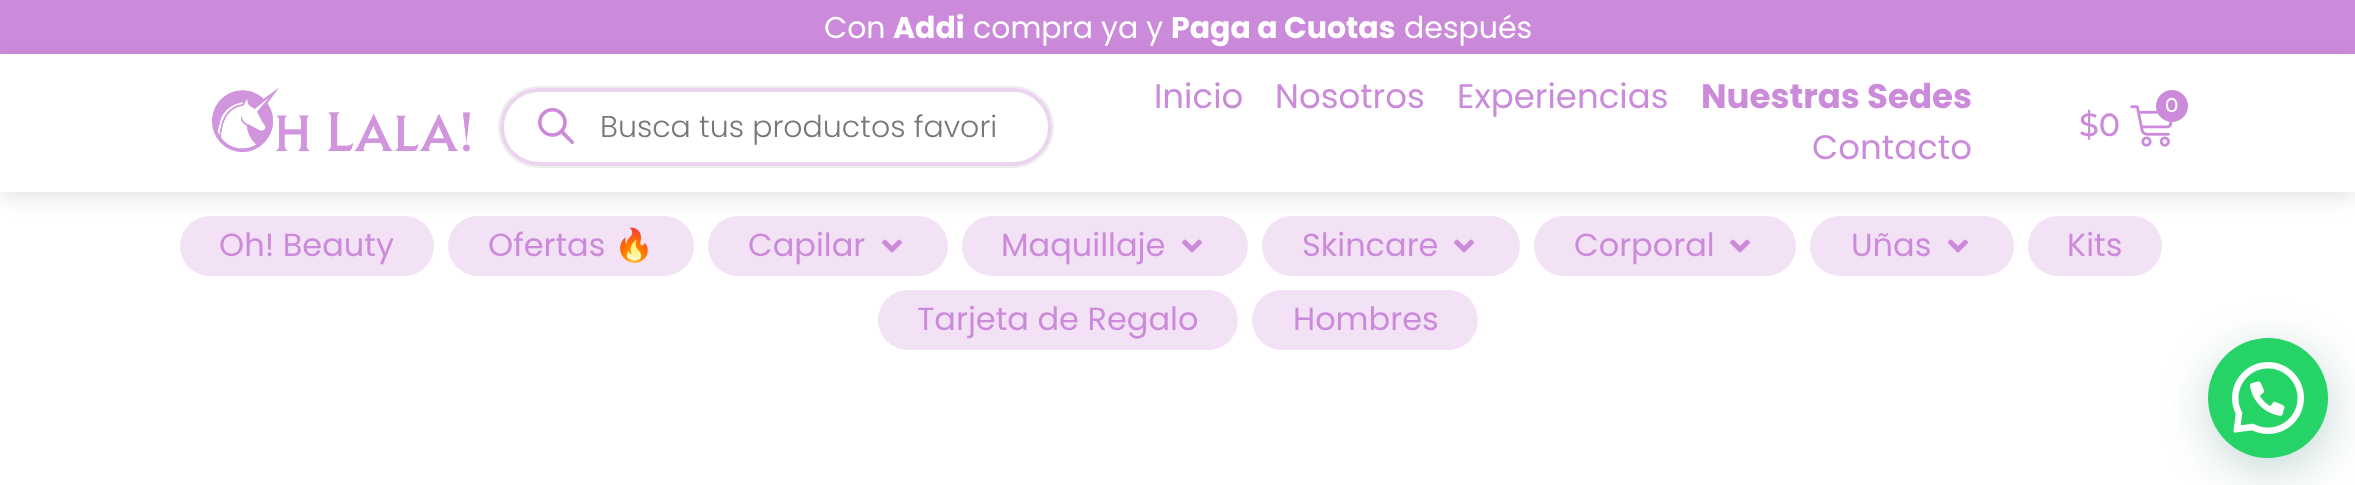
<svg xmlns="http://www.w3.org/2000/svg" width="2355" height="485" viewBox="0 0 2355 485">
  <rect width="100%" height="100%" fill="rgb(255,255,255)"/>
  <rect x="0" y="0" width="2355" height="54" fill="rgb(203,139,218)"/>
  <text x="824" y="38" font-family="Poppins" font-size="30" fill="rgb(255,255,255)">Con</text>
  <text x="893" y="38" font-family="Poppins" font-size="30" font-weight="bold" fill="rgb(255,255,255)">Addi</text>
  <text x="973" y="38" font-family="Poppins" font-size="30" fill="rgb(255,255,255)">compra ya y</text>
  <text x="1171" y="38" font-family="Poppins" font-size="30" font-weight="bold" fill="rgb(255,255,255)">Paga a Cuotas</text>
  <text x="1404" y="38" font-family="Poppins" font-size="30" fill="rgb(255,255,255)">después</text>
  <rect x="0" y="60" width="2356" height="138" fill="rgba(0,0,0,0.1)" filter="blur(10px)"/>
  <rect x="0" y="54" width="2355" height="138" fill="rgb(255,255,255)"/>
  <image x="212" y="88" width="258" height="64" href="pic1.png"/>
  <rect x="499" y="87" width="554" height="80" rx="40" fill="none" stroke="rgb(238,238,238)" stroke-width="2"/>
  <rect x="500" y="88" width="552" height="78" rx="39" fill="rgb(255,255,255)"/>
  <rect x="502" y="90" width="548" height="74" rx="37" fill="none" stroke="rgba(203,139,218,0.37)" stroke-width="4"/>
  <image x="538" y="108" width="36" height="36" href="pic2.png"/>
  <text x="600" y="137" font-family="Poppins" font-size="30" font-weight="300" fill="rgb(119,119,119)">Busca tus productos favori</text>
  <g font-family="Poppins" font-size="34" fill="rgb(203,139,218)">
    <text x="1154" y="108">Inicio</text>
    <text x="1275" y="108">Nosotros</text>
    <text x="1457" y="108">Experiencias</text>
  </g>
  <text x="1701" y="108" font-family="Poppins" font-size="34" font-weight="bold" fill="rgb(203,139,218)">Nuestras Sedes</text>
  <text x="1812" y="159" font-family="Poppins" font-size="34" fill="rgb(203,139,218)">Contacto</text>
  <image x="2130" y="105" width="43" height="42" href="pic3.png"/>
  <circle cx="2172" cy="106" r="16" fill="rgb(203,139,218)"/>
  <text x="2165" y="112" font-family="Montserrat" font-size="20" font-weight="500" fill="rgb(255,255,255)">0</text>
  <text x="2079" y="136" font-family="Montserrat" font-size="32" font-weight="500" fill="rgb(203,139,218)">$0</text>
  <rect x="180" y="216" width="254" height="60" rx="30" fill="rgb(243,226,246)"/>
  <text x="219" y="256" font-family="Poppins" font-size="32" fill="rgb(203,139,218)">Oh! Beauty</text>
  <rect x="448" y="216" width="246" height="60" rx="30" fill="rgb(243,226,246)"/>
  <text x="488" y="256" font-family="Poppins" font-size="32" fill="rgb(203,139,218)">Ofertas</text>
  <text x="614" y="256" font-family="Noto Color Emoji" font-size="32" fill="rgb(203,139,218)">🔥</text>
  <rect x="708" y="216" width="240" height="60" rx="30" fill="rgb(243,226,246)"/>
  <text x="748" y="256" font-family="Poppins" font-size="32" fill="rgb(203,139,218)">Capilar</text>
  <image x="882" y="239" width="20" height="14" href="pic4.png"/>
  <rect x="962" y="216" width="286" height="60" rx="30" fill="rgb(243,226,246)"/>
  <text x="1001" y="256" font-family="Poppins" font-size="32" fill="rgb(203,139,218)">Maquillaje</text>
  <image x="1182" y="239" width="20" height="14" href="pic4.png"/>
  <rect x="1262" y="216" width="258" height="60" rx="30" fill="rgb(243,226,246)"/>
  <text x="1302" y="256" font-family="Poppins" font-size="32" fill="rgb(203,139,218)">Skincare</text>
  <image x="1454" y="239" width="20" height="14" href="pic4.png"/>
  <rect x="1534" y="216" width="262" height="60" rx="30" fill="rgb(243,226,246)"/>
  <text x="1574" y="256" font-family="Poppins" font-size="32" fill="rgb(203,139,218)">Corporal</text>
  <image x="1730" y="239" width="20" height="14" href="pic4.png"/>
  <rect x="1810" y="216" width="204" height="60" rx="30" fill="rgb(243,226,246)"/>
  <text x="1851" y="256" font-family="Poppins" font-size="32" fill="rgb(203,139,218)">Uñas</text>
  <image x="1948" y="239" width="20" height="14" href="pic4.png"/>
  <rect x="2028" y="216" width="134" height="60" rx="30" fill="rgb(243,226,246)"/>
  <text x="2067" y="256" font-family="Poppins" font-size="32" fill="rgb(203,139,218)">Kits</text>
  <rect x="878" y="290" width="360" height="60" rx="30" fill="rgb(243,226,246)"/>
  <text x="917" y="330" font-family="Poppins" font-size="32" fill="rgb(203,139,218)">Tarjeta de Regalo</text>
  <rect x="1252" y="290" width="226" height="60" rx="30" fill="rgb(243,226,246)"/>
  <text x="1293" y="330" font-family="Poppins" font-size="32" fill="rgb(203,139,218)">Hombres</text>
  <rect x="2210" y="350" width="120" height="120" rx="60" fill="rgba(7,94,84,0.24)" filter="blur(24px)"/>
  <circle cx="2268" cy="398" r="60" fill="rgb(37,211,102)"/>
  <image x="2232" y="362" width="72" height="72" href="pic5.png"/>
</svg>
